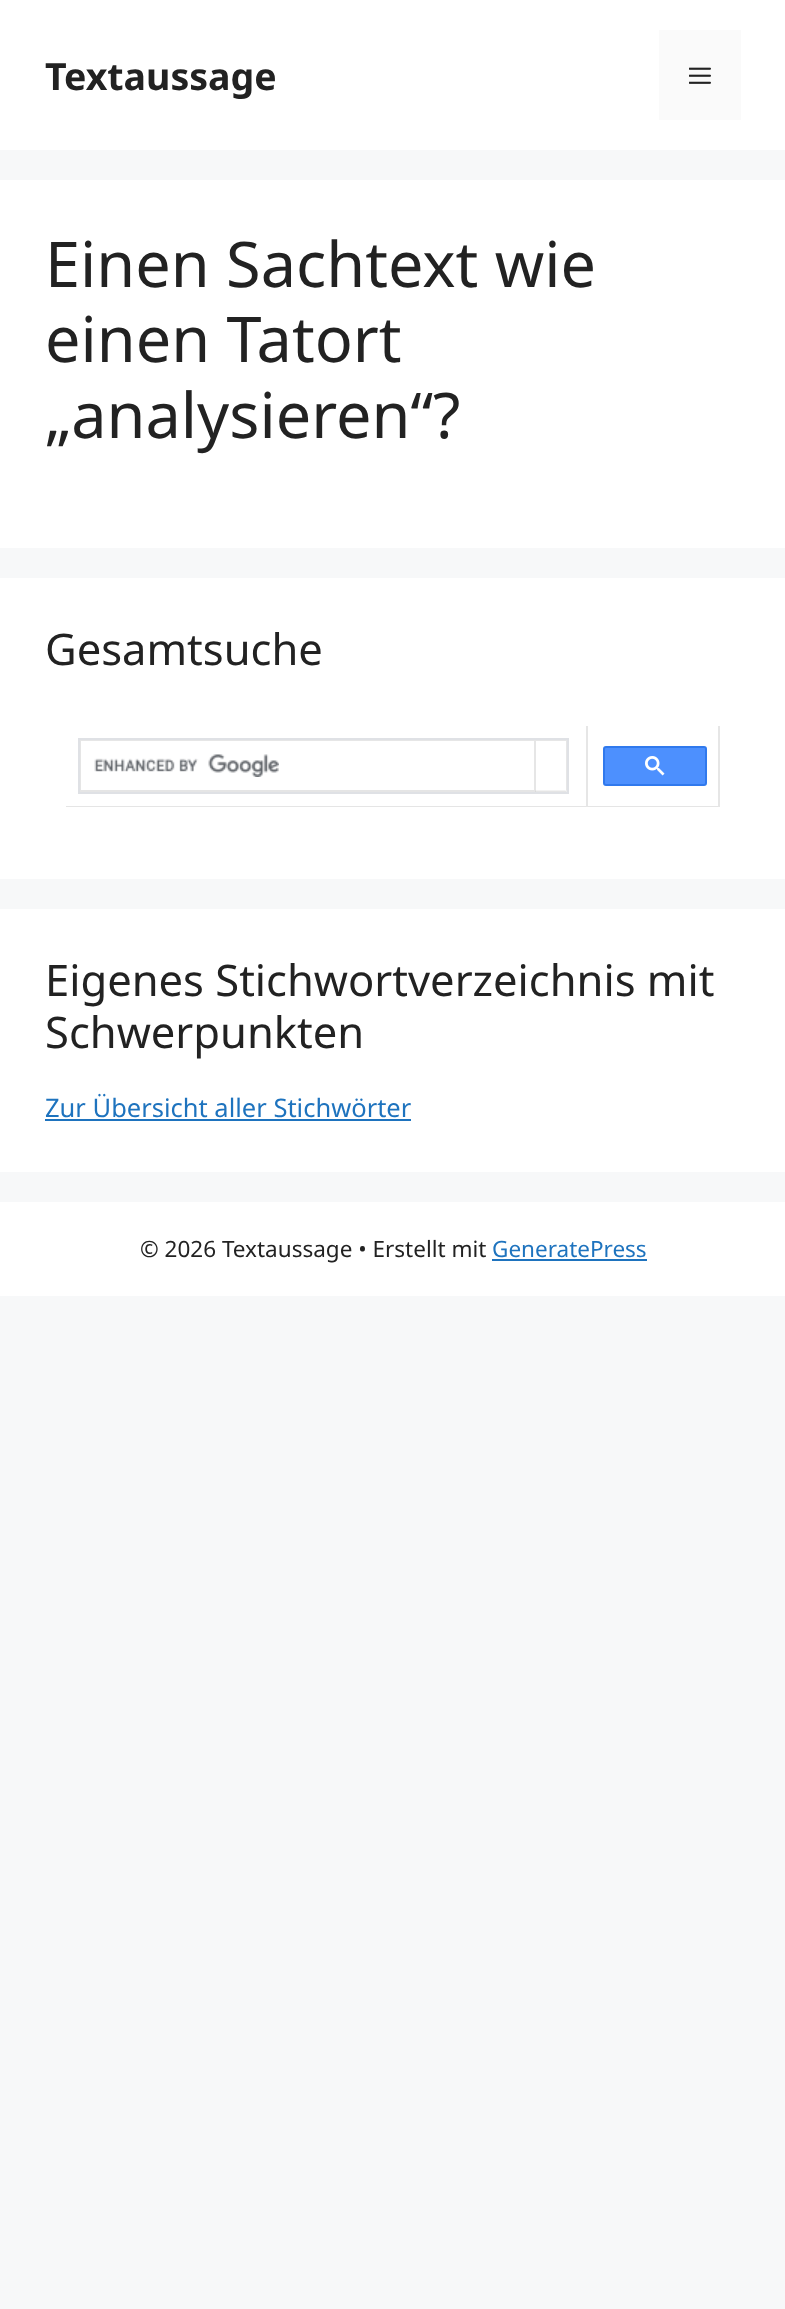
<svg xmlns="http://www.w3.org/2000/svg" width="785" height="2309" viewBox="0 0 785 2309">
  <rect width="100%" height="100%" fill="rgb(247,248,249)"/>
  <rect x="0" y="0" width="785" height="150" fill="rgb(255,255,255)"/>
  <text x="45" y="90" font-family="Noto Sans" font-size="37.5" font-weight="bold" fill="rgb(34,34,34)">Textaussage</text>
  <rect x="659" y="30" width="82" height="90" fill="rgb(250,250,250)"/>
  <image x="689" y="67" width="22" height="17" href="pic1.png"/>
  <rect x="0" y="180" width="785" height="368" fill="rgb(255,255,255)"/>
  <g font-family="Noto Sans" font-size="63" fill="rgb(34,34,34)">
    <text>
      <tspan x="45" y="287">Einen Sachtext wie</tspan>
      <tspan x="45" y="362">einen Tatort</tspan>
      <tspan x="45" y="438">„analysieren“?</tspan>
    </text>
  </g>
  <rect x="0" y="578" width="785" height="301" fill="rgb(255,255,255)"/>
  <text x="45" y="665" font-family="Noto Sans" font-size="43.5" fill="rgb(34,34,34)">Gesamtsuche</text>
  <path d="M588 726V807L586 806V726Z" fill="rgb(230,230,230)"/>
  <path d="M588 807H66V806H586Z" fill="rgba(0,0,0,0.1)"/>
  <rect x="79" y="739" width="489" height="54" fill="none" stroke="rgb(223,225,229)" stroke-width="2"/>
  <path d="M80 740H567V741H81Z" fill="rgb(230,230,230)"/>
  <path d="M80 792V740L81 741V792Z" fill="rgba(0,0,0,0.1)"/>
  <path d="M536 741V792L534 790V741Z" fill="rgb(230,230,230)"/>
  <path d="M536 792H81V790H534Z" fill="rgba(0,0,0,0.1)"/>
  <image x="94" y="754" width="185" height="23" href="pic2.png"/>
  <path d="M567 741V792L566 790V741Z" fill="rgb(230,230,230)"/>
  <path d="M567 792H535.5V790.5H565.5Z" fill="rgba(0,0,0,0.1)"/>
  <path d="M720 726V807L718 806V726Z" fill="rgb(230,230,230)"/>
  <path d="M720 807H588V806H718Z" fill="rgba(0,0,0,0.1)"/>
  <rect x="604" y="747" width="102" height="38" rx="2" fill="rgb(77,144,254)" stroke="rgb(48,121,237)" stroke-width="2"/>
  <image x="645" y="756" width="20" height="20" href="pic3.png"/>
  <rect x="0" y="909" width="785" height="263" fill="rgb(255,255,255)"/>
  <g font-family="Noto Sans" font-size="43.5" fill="rgb(34,34,34)">
    <text>
      <tspan x="45" y="996">Eigenes Stichwortverzeichnis mit</tspan>
      <tspan x="45" y="1048">Schwerpunkten</tspan>
    </text>
  </g>
  <text x="45" y="1117" font-family="Noto Sans" font-size="25.5" fill="rgb(30,115,190)">Zur Übersicht aller Stichwörter</text>
  <rect x="45" y="1119" width="366" height="2" fill="rgb(30,115,190)"/>
  <rect x="0" y="1202" width="785" height="94" fill="rgb(255,255,255)"/>
  <text x="140" y="1257" font-family="Noto Sans" font-size="22.5" fill="rgb(34,34,34)">© 2026 Textaussage • Erstellt mit</text>
  <text x="492" y="1257" font-family="Noto Sans" font-size="22.5" fill="rgb(30,115,190)">GeneratePress</text>
  <rect x="492" y="1259" width="155" height="2" fill="rgb(30,115,190)"/>
</svg>
